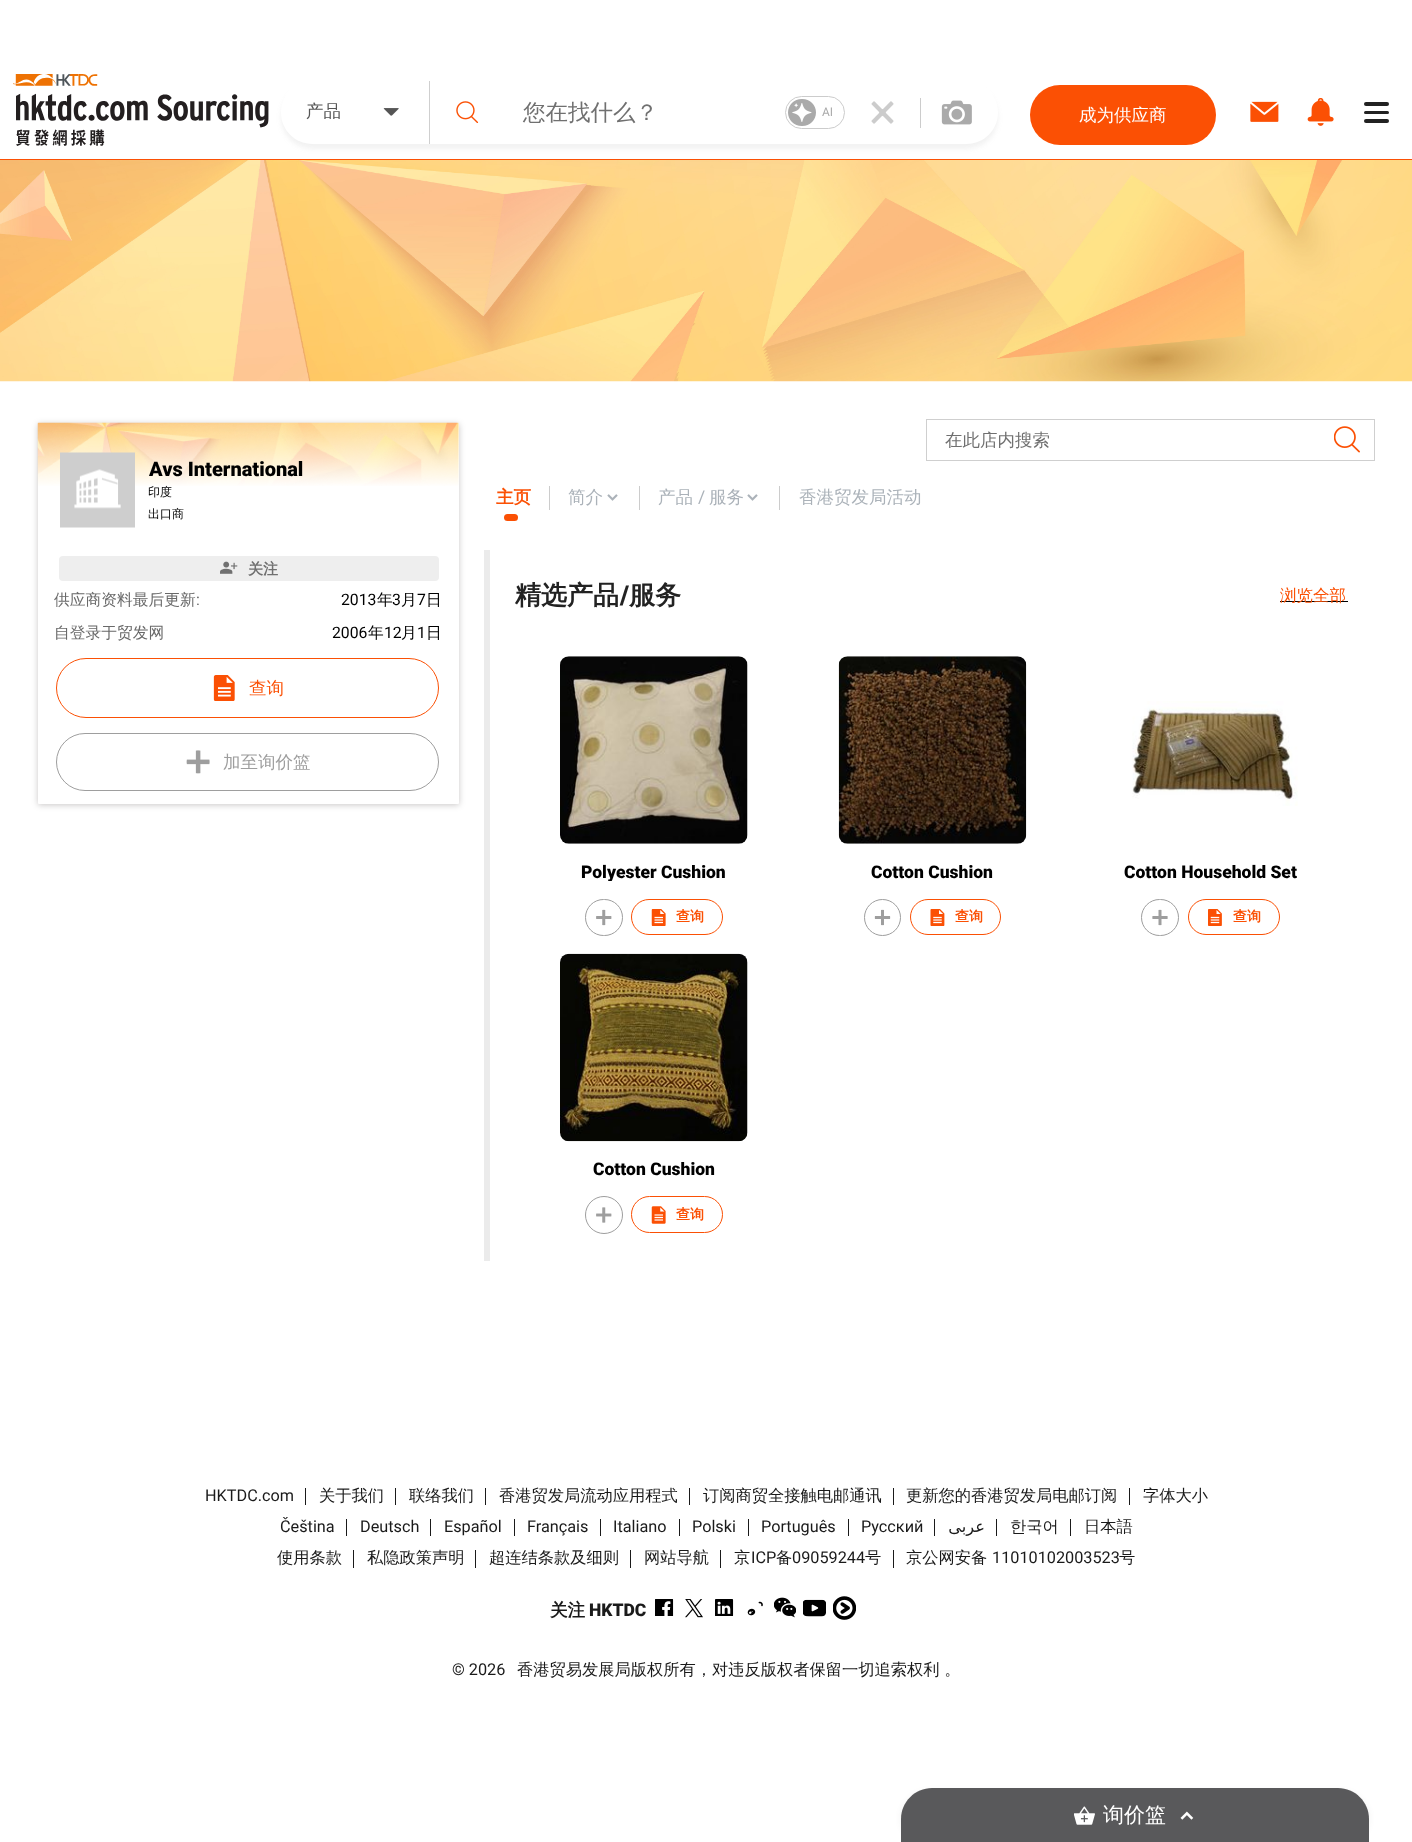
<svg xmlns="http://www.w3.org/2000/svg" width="1412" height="1842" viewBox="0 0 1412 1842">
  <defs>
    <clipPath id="clip1"><path d="M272 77H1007V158H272ZM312.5 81H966.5C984 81 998 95 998 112.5C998 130 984 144 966.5 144H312.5C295 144 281 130 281 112.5C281 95 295 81 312.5 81Z" clip-rule="evenodd"/></clipPath>
    <clipPath id="clip2"><rect x="515" y="861" width="278" height="20"/></clipPath>
  </defs>
  <rect width="100%" height="100%" fill="rgb(255,255,255)"/>
  <rect x="0" y="159" width="1412" height="1" fill="rgb(251,80,4)"/>
  <image x="13" y="74" width="256" height="72" href="pic1.png"/>
  <g clip-path="url(#clip1)">
    <rect x="281" y="86" width="717" height="63" rx="31.5" fill="rgba(127,127,127,0.1)" filter="blur(2.5px)"/>
  </g>
  <rect x="429" y="81" width="1" height="63" fill="rgb(207,207,207)"/>
  <text x="306" y="117" font-family="WenQuanYi Zen Hei" font-size="17.5" font-weight="500" fill="rgb(85,85,85)">产品</text>
  <image x="383" y="108" width="16" height="8" href="pic2.png"/>
  <image x="456" y="101" width="23" height="22" href="pic3.png"/>
  <text x="523" y="120" font-family="WenQuanYi Zen Hei" font-size="22.5" font-weight="500" fill="rgb(112,112,112)">您在找什么？</text>
  <rect x="785.5" y="96.5" width="59" height="32" rx="16" fill="none" stroke="rgb(204,204,204)"/>
  <image x="788" y="99" width="28" height="27" href="pic4.png"/>
  <text x="822" y="116" font-family="Roboto" font-size="12" fill="rgb(170,170,170)">AI</text>
  <image x="871" y="101" width="23" height="23" href="pic5.png"/>
  <rect x="920" y="98" width="1" height="30" fill="rgb(204,204,204)"/>
  <image x="941" y="100" width="31" height="25" href="pic6.png"/>
  <rect x="1030" y="85" width="186" height="60" rx="30" fill="rgb(251,80,4)"/>
  <text x="1079" y="121" font-family="WenQuanYi Zen Hei" font-size="17.5" font-weight="500" fill="rgb(255,255,255)">成为供应商</text>
  <image x="1250" y="101" width="29" height="21" href="pic7.png"/>
  <image x="1307" y="98" width="27" height="28" href="pic8.png"/>
  <rect x="1364" y="102" width="25" height="4" rx="2" fill="rgb(34,34,34)"/>
  <rect x="1364" y="111" width="25" height="3" rx="1.5" fill="rgb(34,34,34)"/>
  <rect x="1364" y="119" width="25" height="4" rx="2" fill="rgb(34,34,34)"/>
  <image x="0" y="160" width="1412" height="222" href="pic9.png"/>
  <rect x="38" y="424" width="421" height="381" rx="1" fill="rgba(7,0,1,0.22)" filter="blur(3px)"/>
  <rect x="38" y="423" width="421" height="381" rx="1" fill="rgb(255,255,255)"/>
  <image x="37" y="422" width="422" height="64" href="pic10.png"/>
  <image x="60" y="452" width="75" height="76" href="pic11.png"/>
  <text x="149" y="476" font-family="Roboto" font-size="20" font-weight="900" fill="rgb(0,0,0)">Avs International</text>
  <g font-family="WenQuanYi Zen Hei" font-size="12" font-weight="500" fill="rgb(0,0,0)">
    <text>
      <tspan x="148" y="496">印度</tspan>
      <tspan x="148" y="518">出口商</tspan>
    </text>
  </g>
  <rect x="59" y="556" width="380" height="25" rx="4" fill="rgb(238,238,238)"/>
  <image x="220" y="561" width="18" height="13" href="pic12.png"/>
  <text x="248" y="574" font-family="WenQuanYi Zen Hei" font-size="15" font-weight="bold" fill="rgb(112,112,112)">关注</text>
  <text x="54" y="605" font-family="WenQuanYi Zen Hei" font-size="15.75" font-weight="500" fill="rgb(105,105,105)">供应商资料最后更新</text>
  <text x="196" y="605" font-family="Roboto" font-size="15.75" fill="rgb(105,105,105)">:</text>
  <text x="341" y="605" font-family="Roboto" font-size="15.75" fill="rgb(0,0,0)">2013</text>
  <text x="377" y="605" font-family="WenQuanYi Zen Hei" font-size="15.75" font-weight="500" fill="rgb(0,0,0)">年</text>
  <text x="392" y="605" font-family="Roboto" font-size="15.75" fill="rgb(0,0,0)">3</text>
  <text x="401" y="605" font-family="WenQuanYi Zen Hei" font-size="15.75" font-weight="500" fill="rgb(0,0,0)">月</text>
  <text x="417" y="605" font-family="Roboto" font-size="15.75" fill="rgb(0,0,0)">7</text>
  <text x="426" y="605" font-family="WenQuanYi Zen Hei" font-size="15.75" font-weight="500" fill="rgb(0,0,0)">日</text>
  <text x="54" y="638" font-family="WenQuanYi Zen Hei" font-size="15.75" font-weight="500" fill="rgb(105,105,105)">自登录于贸发网</text>
  <text x="332" y="638" font-family="Roboto" font-size="15.75" fill="rgb(0,0,0)">2006</text>
  <text x="368" y="638" font-family="WenQuanYi Zen Hei" font-size="15.75" font-weight="500" fill="rgb(0,0,0)">年</text>
  <text x="384" y="638" font-family="Roboto" font-size="15.75" fill="rgb(0,0,0)">12</text>
  <text x="401" y="638" font-family="WenQuanYi Zen Hei" font-size="15.75" font-weight="500" fill="rgb(0,0,0)">月</text>
  <text x="417" y="638" font-family="Roboto" font-size="15.75" fill="rgb(0,0,0)">1</text>
  <text x="426" y="638" font-family="WenQuanYi Zen Hei" font-size="15.75" font-weight="500" fill="rgb(0,0,0)">日</text>
  <rect x="56.5" y="658.5" width="382" height="59" rx="29.5" fill="none" stroke="rgb(251,80,4)"/>
  <image x="213" y="675" width="22" height="26" href="pic13.png"/>
  <text x="249" y="694" font-family="WenQuanYi Zen Hei" font-size="17.5" font-weight="500" fill="rgb(251,80,4)">查询</text>
  <rect x="56.5" y="733.5" width="382" height="57" rx="28.5" fill="none" stroke="rgb(158,158,158)"/>
  <image x="186" y="750" width="24" height="24" href="pic14.png"/>
  <text x="223" y="768" font-family="WenQuanYi Zen Hei" font-size="17.5" font-weight="500" fill="rgb(158,158,158)">加至询价篮</text>
  <rect x="926.5" y="419.5" width="448" height="41" fill="none" stroke="rgb(207,207,207)"/>
  <text x="945" y="446" font-family="WenQuanYi Zen Hei" font-size="17.5" font-weight="500" fill="rgb(112,112,112)">在此店内搜索</text>
  <image x="1334" y="426" width="26" height="27" href="pic15.png"/>
  <text x="496" y="503" font-family="WenQuanYi Zen Hei" font-size="17.5" font-weight="bold" fill="rgb(251,80,4)">主页</text>
  <rect x="504" y="514" width="14" height="7" rx="3.5" fill="rgb(251,80,4)"/>
  <rect x="549" y="486" width="1" height="24" fill="rgb(204,204,204)"/>
  <text x="568" y="503" font-family="WenQuanYi Zen Hei" font-size="17.5" font-weight="500" fill="rgb(171,178,185)">简介</text>
  <image x="607" y="494" width="11" height="7" href="pic16.png"/>
  <rect x="639" y="486" width="1" height="24" fill="rgb(204,204,204)"/>
  <text x="658" y="503" font-family="WenQuanYi Zen Hei" font-size="17.5" font-weight="500" fill="rgb(171,178,185)">产品</text>
  <text x="698" y="503" font-family="Roboto" font-size="17.5" fill="rgb(171,178,185)">/</text>
  <text x="709" y="503" font-family="WenQuanYi Zen Hei" font-size="17.5" font-weight="500" fill="rgb(171,178,185)">服务</text>
  <image x="747" y="494" width="11" height="7" href="pic16.png"/>
  <rect x="779" y="486" width="1" height="24" fill="rgb(204,204,204)"/>
  <text x="799" y="503" font-family="WenQuanYi Zen Hei" font-size="17.5" font-weight="500" fill="rgb(171,178,185)">香港贸发局活动</text>
  <rect x="484" y="550" width="6" height="711" fill="rgb(235,235,235)"/>
  <text x="515" y="604" font-family="WenQuanYi Zen Hei" font-size="26" font-weight="bold" fill="rgb(34,34,34)">精选产品</text>
  <text x="620" y="604" font-family="Roboto" font-size="26" font-weight="900" fill="rgb(34,34,34)">/</text>
  <text x="629" y="604" font-family="WenQuanYi Zen Hei" font-size="26" font-weight="bold" fill="rgb(34,34,34)">服务</text>
  <rect x="1280" y="601" width="68" height="1" fill="rgb(0,0,0)"/>
  <text x="1280" y="601" font-family="WenQuanYi Zen Hei" font-size="16.5" font-weight="500" fill="rgb(251,80,4)">浏览全部</text>
  <image x="560" y="656" width="188" height="188" href="pic17.png"/>
  <g clip-path="url(#clip2)">
    <text x="581" y="878" font-family="Roboto" font-size="17.5" font-weight="900" fill="rgb(0,0,0)">Polyester Cushion</text>
  </g>
  <rect x="585.5" y="899.5" width="37" height="36" rx="18" fill="none" stroke="rgb(158,158,158)"/>
  <image x="596" y="909" width="16" height="17" href="pic18.png"/>
  <rect x="631.5" y="899.5" width="91" height="35" rx="17.5" fill="none" stroke="rgb(251,80,4)"/>
  <image x="651" y="909" width="15" height="17" href="pic19.png"/>
  <text x="676" y="921" font-family="WenQuanYi Zen Hei" font-size="14" font-weight="bold" fill="rgb(251,80,4)">查询</text>
  <image x="838" y="656" width="189" height="188" href="pic20.png"/>
  <text x="871" y="878" font-family="Roboto" font-size="17.5" font-weight="900" fill="rgb(0,0,0)">Cotton Cushion</text>
  <circle cx="882.5" cy="917.5" r="18" fill="none" stroke="rgb(158,158,158)"/>
  <image x="874" y="909" width="17" height="17" href="pic21.png"/>
  <rect x="910.5" y="899.5" width="90" height="35" rx="17.5" fill="none" stroke="rgb(251,80,4)"/>
  <image x="930" y="909" width="15" height="17" href="pic22.png"/>
  <text x="955" y="921" font-family="WenQuanYi Zen Hei" font-size="14" font-weight="bold" fill="rgb(251,80,4)">查询</text>
  <image x="1132" y="701" width="166" height="105" href="pic23.png"/>
  <text x="1124" y="878" font-family="Roboto" font-size="17.5" font-weight="900" fill="rgb(0,0,0)">Cotton Household Set</text>
  <rect x="1141.5" y="899.5" width="37" height="36" rx="18" fill="none" stroke="rgb(158,158,158)"/>
  <image x="1152" y="909" width="16" height="17" href="pic24.png"/>
  <rect x="1188.5" y="899.5" width="91" height="35" rx="17.5" fill="none" stroke="rgb(251,80,4)"/>
  <image x="1208" y="909" width="14" height="17" href="pic25.png"/>
  <text x="1233" y="921" font-family="WenQuanYi Zen Hei" font-size="14" font-weight="bold" fill="rgb(251,80,4)">查询</text>
  <image x="560" y="953" width="188" height="189" href="pic26.png"/>
  <text x="593" y="1175" font-family="Roboto" font-size="17.5" font-weight="900" fill="rgb(0,0,0)">Cotton Cushion</text>
  <circle cx="604" cy="1215" r="18.5" fill="none" stroke="rgb(158,158,158)"/>
  <image x="596" y="1207" width="16" height="16" href="pic27.png"/>
  <rect x="631.5" y="1196.5" width="91" height="36" rx="18" fill="none" stroke="rgb(251,80,4)"/>
  <image x="651" y="1206" width="15" height="18" href="pic28.png"/>
  <text x="676" y="1219" font-family="WenQuanYi Zen Hei" font-size="14" font-weight="bold" fill="rgb(251,80,4)">查询</text>
  <text x="205" y="1501" font-family="Roboto" font-size="16.25" fill="rgb(26,26,26)">HKTDC.com</text>
  <rect x="305" y="1488" width="1" height="17" fill="rgb(26,26,26)"/>
  <text x="319" y="1501" font-family="WenQuanYi Zen Hei" font-size="16.25" font-weight="500" fill="rgb(26,26,26)">关于我们</text>
  <rect x="395" y="1488" width="1" height="17" fill="rgb(26,26,26)"/>
  <text x="409" y="1501" font-family="WenQuanYi Zen Hei" font-size="16.25" font-weight="500" fill="rgb(26,26,26)">联络我们</text>
  <rect x="485" y="1488" width="1" height="17" fill="rgb(26,26,26)"/>
  <text x="499" y="1501" font-family="WenQuanYi Zen Hei" font-size="16.25" font-weight="500" fill="rgb(26,26,26)">香港贸发局流动应用程式</text>
  <rect x="689" y="1488" width="1" height="17" fill="rgb(26,26,26)"/>
  <text x="703" y="1501" font-family="WenQuanYi Zen Hei" font-size="16.25" font-weight="500" fill="rgb(26,26,26)">订阅商贸全接触电邮通讯</text>
  <rect x="893" y="1488" width="1" height="17" fill="rgb(26,26,26)"/>
  <text x="906" y="1501" font-family="WenQuanYi Zen Hei" font-size="16.25" font-weight="500" fill="rgb(26,26,26)">更新您的香港贸发局电邮订阅</text>
  <rect x="1129" y="1488" width="1" height="17" fill="rgb(26,26,26)"/>
  <text x="1143" y="1501" font-family="WenQuanYi Zen Hei" font-size="16.25" font-weight="500" fill="rgb(26,26,26)">字体大小</text>
  <text x="280" y="1532" font-family="Roboto" font-size="16.25" fill="rgb(26,26,26)">Čeština</text>
  <rect x="346" y="1519" width="1" height="17" fill="rgb(26,26,26)"/>
  <text x="360" y="1532" font-family="Roboto" font-size="16.25" fill="rgb(26,26,26)">Deutsch</text>
  <rect x="430" y="1519" width="1" height="17" fill="rgb(26,26,26)"/>
  <text x="444" y="1532" font-family="Roboto" font-size="16.25" fill="rgb(26,26,26)">Español</text>
  <rect x="514" y="1519" width="1" height="17" fill="rgb(26,26,26)"/>
  <text x="527" y="1532" font-family="Roboto" font-size="16.25" fill="rgb(26,26,26)">Français</text>
  <rect x="600" y="1519" width="1" height="17" fill="rgb(26,26,26)"/>
  <text x="613" y="1532" font-family="Roboto" font-size="16.25" fill="rgb(26,26,26)">Italiano</text>
  <rect x="679" y="1519" width="1" height="17" fill="rgb(26,26,26)"/>
  <text x="692" y="1532" font-family="Roboto" font-size="16.25" fill="rgb(26,26,26)">Polski</text>
  <rect x="748" y="1519" width="1" height="17" fill="rgb(26,26,26)"/>
  <text x="761" y="1532" font-family="Roboto" font-size="16.25" fill="rgb(26,26,26)">Português</text>
  <rect x="848" y="1519" width="1" height="17" fill="rgb(26,26,26)"/>
  <text x="861" y="1532" font-family="Roboto" font-size="16.25" fill="rgb(26,26,26)">Pусский</text>
  <rect x="934" y="1519" width="1" height="17" fill="rgb(26,26,26)"/>
  <text x="985" y="1532" font-family="DejaVu Sans" font-size="16.25" direction="rtl" fill="rgb(26,26,26)">عربى</text>
  <rect x="996" y="1519" width="1" height="17" fill="rgb(26,26,26)"/>
  <text x="1010" y="1532" font-family="WenQuanYi Zen Hei" font-size="16.25" font-weight="500" fill="rgb(26,26,26)">한국어</text>
  <rect x="1070" y="1519" width="1" height="17" fill="rgb(26,26,26)"/>
  <g font-family="WenQuanYi Zen Hei" font-size="16.25" font-weight="500" fill="rgb(26,26,26)">
    <text x="1084" y="1532">日本語</text>
    <text x="277" y="1563">使用条款</text>
  </g>
  <rect x="353" y="1550" width="1" height="18" fill="rgb(26,26,26)"/>
  <text x="367" y="1563" font-family="WenQuanYi Zen Hei" font-size="16.25" font-weight="500" fill="rgb(26,26,26)">私隐政策声明</text>
  <rect x="475" y="1550" width="1" height="18" fill="rgb(26,26,26)"/>
  <text x="489" y="1563" font-family="WenQuanYi Zen Hei" font-size="16.25" font-weight="500" fill="rgb(26,26,26)">超连结条款及细则</text>
  <rect x="630" y="1550" width="1" height="18" fill="rgb(26,26,26)"/>
  <text x="644" y="1563" font-family="WenQuanYi Zen Hei" font-size="16.25" font-weight="500" fill="rgb(26,26,26)">网站导航</text>
  <rect x="720" y="1550" width="1" height="18" fill="rgb(26,26,26)"/>
  <text x="734" y="1563" font-family="WenQuanYi Zen Hei" font-size="16.25" font-weight="500" fill="rgb(26,26,26)">京</text>
  <text x="751" y="1563" font-family="Roboto" font-size="16.25" fill="rgb(26,26,26)">ICP</text>
  <text x="776" y="1563" font-family="WenQuanYi Zen Hei" font-size="16.25" font-weight="500" fill="rgb(26,26,26)">备</text>
  <text x="792" y="1563" font-family="Roboto" font-size="16.25" fill="rgb(26,26,26)">09059244</text>
  <text x="865" y="1563" font-family="WenQuanYi Zen Hei" font-size="16.25" font-weight="500" fill="rgb(26,26,26)">号</text>
  <rect x="893" y="1550" width="1" height="18" fill="rgb(26,26,26)"/>
  <text x="906" y="1563" font-family="WenQuanYi Zen Hei" font-size="16.25" font-weight="500" fill="rgb(26,26,26)">京公网安备</text>
  <text x="992" y="1563" font-family="Roboto" font-size="16.25" fill="rgb(26,26,26)">11010102003523</text>
  <text x="1119" y="1563" font-family="WenQuanYi Zen Hei" font-size="16.25" font-weight="500" fill="rgb(26,26,26)">号</text>
  <text x="550" y="1616" font-family="WenQuanYi Zen Hei" font-size="17.5" font-weight="bold" fill="rgb(26,26,26)">关注</text>
  <text x="589" y="1616" font-family="Roboto" font-size="17.5" font-weight="900" fill="rgb(26,26,26)">HKTDC</text>
  <image x="655" y="1599" width="19" height="17" href="pic29.png"/>
  <image x="685" y="1599" width="18" height="19" href="pic30.png"/>
  <image x="715" y="1599" width="19" height="17" href="pic31.png"/>
  <image x="747" y="1601" width="16" height="15" href="pic32.png"/>
  <image x="774" y="1597" width="22" height="21" href="pic33.png"/>
  <image x="803" y="1599" width="23" height="18" href="pic34.png"/>
  <image x="833" y="1596" width="23" height="24" href="pic35.png"/>
  <text x="452" y="1675" font-family="Roboto" font-size="16.25" fill="rgb(26,26,26)">© 2026</text>
  <text x="517" y="1675" font-family="WenQuanYi Zen Hei" font-size="16.25" font-weight="500" fill="rgb(26,26,26)">香港贸易发展局版权所有，对违反版权者保留一切追索权利 。</text>
  <rect x="901" y="1791" width="468" height="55" rx="31" fill="rgba(0,0,0,0.06)" filter="blur(3px)"/>
  <path d="M932 1788H1338C1355 1788 1369 1802 1369 1819V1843H901V1819C901 1802 915 1788 932 1788Z" fill="rgb(89,89,91)"/>
  <image x="1074" y="1806" width="21" height="19" href="pic36.png"/>
  <text x="1103" y="1822" font-family="WenQuanYi Zen Hei" font-size="21" font-weight="500" fill="rgb(255,255,255)">询价篮</text>
  <image x="1180" y="1811" width="14" height="9" href="pic37.png"/>
</svg>
